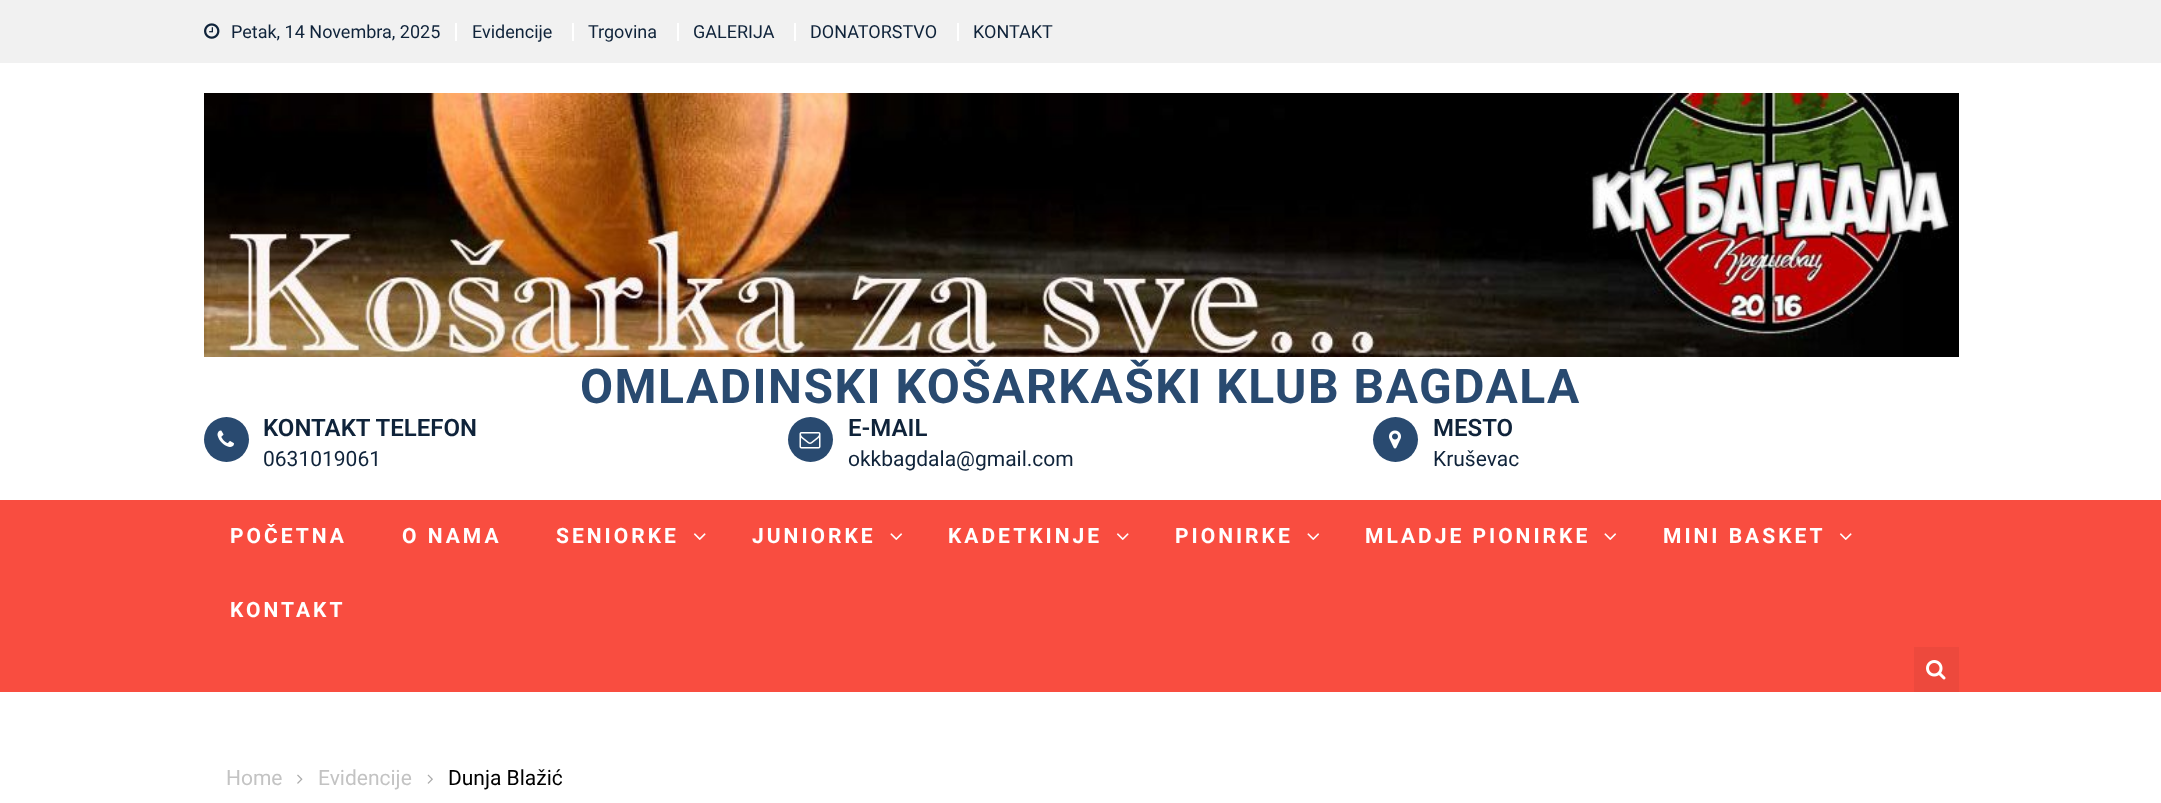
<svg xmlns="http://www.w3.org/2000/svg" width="2161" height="803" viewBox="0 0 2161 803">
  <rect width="100%" height="100%" fill="rgb(255,255,255)"/>
  <rect x="0" y="0" width="2161" height="63" fill="rgb(241,241,241)"/>
  <image x="204" y="23" width="16" height="16" href="pic1.png"/>
  <text x="231" y="38" font-family="Roboto" font-size="18" fill="rgb(15,35,58)">Petak, 14 Novembra, 2025</text>
  <rect x="455" y="23" width="2" height="18" fill="rgb(255,255,255)"/>
  <text x="472" y="38" font-family="Roboto" font-size="18" fill="rgb(15,35,58)">Evidencije</text>
  <rect x="572" y="23" width="2" height="18" fill="rgb(255,255,255)"/>
  <text x="588" y="38" font-family="Roboto" font-size="18" fill="rgb(15,35,58)">Trgovina</text>
  <rect x="677" y="23" width="2" height="18" fill="rgb(255,255,255)"/>
  <text x="693" y="38" font-family="Roboto" font-size="18" fill="rgb(15,35,58)">GALERIJA</text>
  <rect x="794" y="23" width="2" height="18" fill="rgb(255,255,255)"/>
  <text x="810" y="38" font-family="Roboto" font-size="18" fill="rgb(15,35,58)">DONATORSTVO</text>
  <rect x="957" y="23" width="2" height="18" fill="rgb(255,255,255)"/>
  <text x="973" y="38" font-family="Roboto" font-size="18" fill="rgb(15,35,58)">KONTAKT</text>
  <image x="204" y="93" width="1755" height="264" href="pic2.png"/>
  <text x="580" y="403" font-family="Roboto" font-size="48" font-weight="bold" letter-spacing="1.5" fill="rgb(41,74,112)">OMLADINSKI KOŠARKAŠKI KLUB BAGDALA</text>
  <circle cx="226.5" cy="439.5" r="22.5" fill="rgb(41,74,112)"/>
  <image x="217" y="430" width="17" height="17" href="pic3.png"/>
  <text x="263" y="436" font-family="Roboto" font-size="24" font-weight="600" fill="rgb(15,35,58)">KONTAKT TELEFON</text>
  <text x="263" y="466" font-family="Roboto" font-size="21" fill="rgb(15,35,58)">0631019061</text>
  <circle cx="810.5" cy="439.5" r="22.5" fill="rgb(41,74,112)"/>
  <image x="799" y="432" width="22" height="17" href="pic4.png"/>
  <text x="848" y="436" font-family="Roboto" font-size="24" font-weight="600" fill="rgb(15,35,58)">E-MAIL</text>
  <text x="848" y="466" font-family="Roboto" font-size="21" fill="rgb(15,35,58)">okkbagdala@gmail.com</text>
  <circle cx="1395.5" cy="439.5" r="22.5" fill="rgb(41,74,112)"/>
  <image x="1389" y="430" width="12" height="19" href="pic5.png"/>
  <text x="1433" y="436" font-family="Roboto" font-size="24" font-weight="600" fill="rgb(15,35,58)">MESTO</text>
  <text x="1433" y="466" font-family="Roboto" font-size="21" fill="rgb(15,35,58)">Kruševac</text>
  <rect x="0" y="500" width="2161" height="192" fill="rgb(249,77,64)"/>
  <g font-family="Roboto" font-size="21" font-weight="bold" letter-spacing="3" fill="rgb(255,255,255)">
    <text x="230" y="543">POČETNA</text>
    <text x="402" y="543">O NAMA</text>
    <text x="556" y="543">SENIORKE</text>
  </g>
  <image x="693" y="533" width="13" height="7" href="pic6.png"/>
  <text x="752" y="543" font-family="Roboto" font-size="21" font-weight="bold" letter-spacing="3" fill="rgb(255,255,255)">JUNIORKE</text>
  <image x="890" y="533" width="13" height="7" href="pic7.png"/>
  <text x="948" y="543" font-family="Roboto" font-size="21" font-weight="bold" letter-spacing="3" fill="rgb(255,255,255)">KADETKINJE</text>
  <image x="1116" y="533" width="13" height="7" href="pic6.png"/>
  <text x="1175" y="543" font-family="Roboto" font-size="21" font-weight="bold" letter-spacing="3" fill="rgb(255,255,255)">PIONIRKE</text>
  <image x="1307" y="533" width="13" height="7" href="pic7.png"/>
  <text x="1365" y="543" font-family="Roboto" font-size="21" font-weight="bold" letter-spacing="3" fill="rgb(255,255,255)">MLADJE PIONIRKE</text>
  <image x="1604" y="533" width="13" height="7" href="pic7.png"/>
  <text x="1663" y="543" font-family="Roboto" font-size="21" font-weight="bold" letter-spacing="3" fill="rgb(255,255,255)">MINI BASKET</text>
  <image x="1839" y="533" width="13" height="7" href="pic6.png"/>
  <text x="230" y="617" font-family="Roboto" font-size="21" font-weight="bold" letter-spacing="3" fill="rgb(255,255,255)">KONTAKT</text>
  <rect x="1914" y="647" width="45" height="45" fill="rgb(237,73,61)"/>
  <image x="1926" y="660" width="20" height="20" href="pic8.png"/>
  <text x="226" y="785" font-family="Roboto" font-size="21" fill="rgb(195,195,195)">Home</text>
  <image x="297" y="774" width="6" height="10" href="pic9.png"/>
  <text x="318" y="785" font-family="Roboto" font-size="21" fill="rgb(195,195,195)">Evidencije</text>
  <image x="427" y="774" width="6" height="10" href="pic10.png"/>
  <text x="448" y="785" font-family="Roboto" font-size="21" fill="rgb(0,0,0)">Dunja Blažić</text>
</svg>
